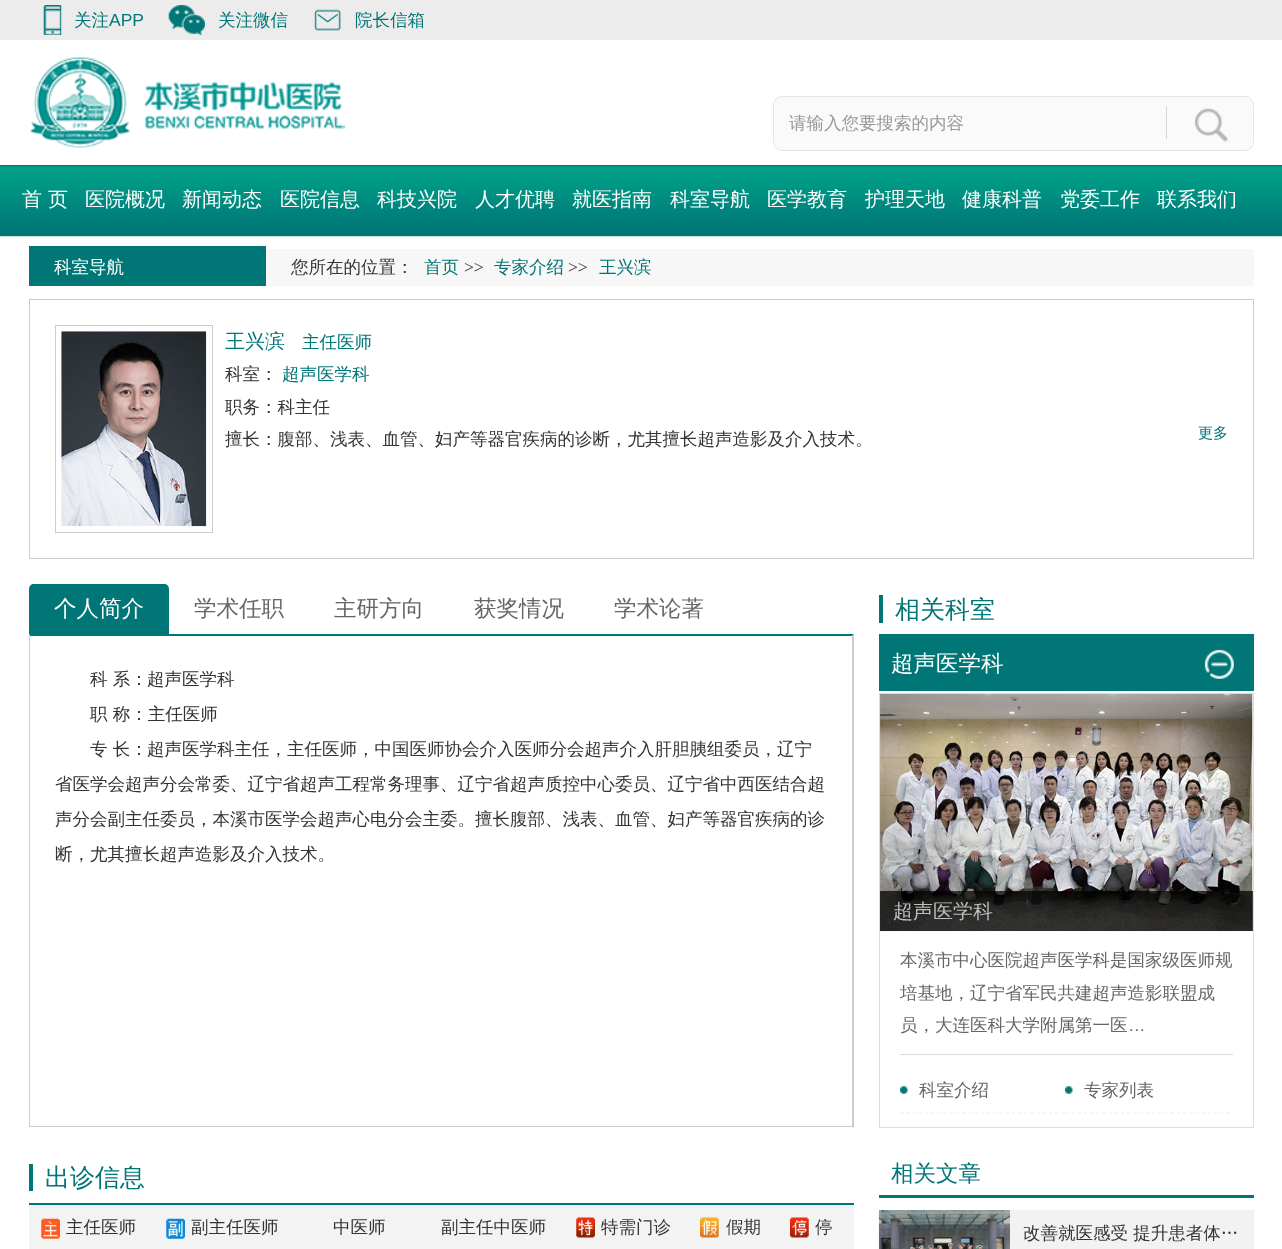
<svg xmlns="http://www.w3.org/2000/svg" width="1282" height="1249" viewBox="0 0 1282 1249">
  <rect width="100%" height="100%" fill="rgb(255,255,255)"/>
  <rect x="0" y="0" width="1282" height="40" fill="rgb(236,236,236)"/>
  <image x="43" y="5" width="19" height="30" href="pic1.png"/>
  <text x="74" y="26" font-family="WenQuanYi Zen Hei" font-size="17.5" font-weight="500" fill="rgb(0,118,119)">关注</text>
  <text x="109" y="26" font-family="Liberation Sans" font-size="17.5" fill="rgb(0,118,119)">APP</text>
  <image x="168" y="5" width="37" height="30" href="pic2.png"/>
  <text x="218" y="26" font-family="WenQuanYi Zen Hei" font-size="17.5" font-weight="500" fill="rgb(0,118,119)">关注微信</text>
  <image x="314" y="9" width="27" height="22" href="pic3.png"/>
  <text x="355" y="26" font-family="WenQuanYi Zen Hei" font-size="17.5" font-weight="500" fill="rgb(0,118,119)">院长信箱</text>
  <image x="30" y="57" width="316" height="91" href="pic4.png"/>
  <rect x="773.5" y="96.5" width="480" height="54" rx="8.5" fill="rgb(250,250,250)" stroke="rgb(230,229,229)"/>
  <rect x="1166" y="106" width="1" height="33" fill="rgb(213,213,213)"/>
  <text x="789" y="129" font-family="WenQuanYi Zen Hei" font-size="17.5" font-weight="500" fill="rgb(153,153,153)">请输入您要搜索的内容</text>
  <image x="1195" y="108" width="33" height="34" href="pic5.png"/>
  <image x="0" y="165" width="1282" height="72" href="pic6.png"/>
  <g font-family="WenQuanYi Zen Hei" font-size="20" font-weight="500" fill="rgb(255,255,255)">
    <text x="22" y="206">首 页</text>
    <text x="85" y="206">医院概况</text>
    <text x="182" y="206">新闻动态</text>
    <text x="280" y="206">医院信息</text>
    <text x="377" y="206">科技兴院</text>
    <text x="475" y="206">人才优聘</text>
    <text x="572" y="206">就医指南</text>
    <text x="670" y="206">科室导航</text>
    <text x="767" y="206">医学教育</text>
    <text x="865" y="206">护理天地</text>
    <text x="962" y="206">健康科普</text>
    <text x="1060" y="206">党委工作</text>
    <text x="1157" y="206">联系我们</text>
  </g>
  <rect x="29" y="246" width="237" height="40" fill="rgb(0,118,119)"/>
  <text x="54" y="273" font-family="WenQuanYi Zen Hei" font-size="17.5" font-weight="500" fill="rgb(255,255,255)">科室导航</text>
  <rect x="29.5" y="299.5" width="1224" height="259" fill="none" stroke="rgb(204,204,204)"/>
  <rect x="55.5" y="325.5" width="157" height="207" fill="none" stroke="rgb(204,204,204)"/>
  <image x="61" y="331" width="146" height="196" href="pic7.png"/>
  <text x="225" y="348" font-family="WenQuanYi Zen Hei" font-size="20" font-weight="500" fill="rgb(0,118,119)">王兴滨</text>
  <text x="302" y="348" font-family="WenQuanYi Zen Hei" font-size="17.5" font-weight="500" fill="rgb(0,118,119)">主任医师</text>
  <text x="225" y="380" font-family="WenQuanYi Zen Hei" font-size="17.5" font-weight="500" fill="rgb(51,51,51)">科室：</text>
  <text x="282" y="380" font-family="WenQuanYi Zen Hei" font-size="17.5" font-weight="500" fill="rgb(0,118,119)">超声医学科</text>
  <g font-family="WenQuanYi Zen Hei" font-size="17.5" font-weight="500" fill="rgb(51,51,51)">
    <text>
      <tspan x="225" y="413">职务：科主任</tspan>
      <tspan x="225" y="445">擅长：腹部、浅表、血管、妇产等器官疾病的诊断，尤其擅长超声造影及介入技术。</tspan>
    </text>
  </g>
  <text x="1198" y="438" font-family="WenQuanYi Zen Hei" font-size="15" font-weight="500" fill="rgb(0,118,119)">更多</text>
  <path d="M34 584H164C167 584 169 586 169 589V634H29V589C29 586 31 584 34 584Z" fill="rgb(0,118,119)"/>
  <text x="54" y="616" font-family="WenQuanYi Zen Hei" font-size="22.5" font-weight="500" fill="rgb(255,255,255)">个人简介</text>
  <g font-family="WenQuanYi Zen Hei" font-size="22.5" font-weight="500" fill="rgb(102,102,102)">
    <text x="194" y="616">学术任职</text>
    <text x="334" y="616">主研方向</text>
    <text x="474" y="616">获奖情况</text>
    <text x="614" y="616">学术论著</text>
  </g>
  <path d="M29 634H854L852 636H30Z" fill="rgb(0,118,119)"/>
  <path d="M854 634V1128L852 1126V636Z" fill="rgb(204,204,204)"/>
  <rect x="29" y="1126" width="825" height="1" fill="rgb(204,204,204)"/>
  <path d="M29 1128V634L30 636V1126Z" fill="rgb(204,204,204)"/>
  <g font-family="WenQuanYi Zen Hei" font-size="17.5" font-weight="500" fill="rgb(51,51,51)">
    <text x="90" y="685">科 系：</text>
    <text x="147" y="685">超声医学科</text>
    <text x="90" y="720">职 称：主任医师</text>
    <text x="90" y="755">专 长：</text>
    <text x="147" y="755">超声医学科主任，主任医师，中国医师协会介入医师分会超声介入肝胆胰组委员，辽宁</text>
    <text x="55" y="790">省医学会超声分会常委、辽宁省超声工程常务理事、辽宁省超声质控中心委员、辽宁省中西医结合超</text>
    <text x="55" y="825">声分会副主任委员，本溪市医学会超声心电分会主委。擅长腹部、浅表、血管、妇产等器官疾病的诊</text>
    <text x="55" y="860">断，尤其擅长超声造影及介入技术。</text>
  </g>
  <rect x="29" y="1203" width="825" height="2" fill="rgb(0,118,119)"/>
  <text x="45" y="1186" font-family="WenQuanYi Zen Hei" font-size="25" font-weight="500" fill="rgb(0,118,119)">出诊信息</text>
  <rect x="29" y="1164" width="4" height="27" fill="rgb(0,118,119)"/>
  <rect x="29" y="1205" width="825" height="44" fill="rgb(243,243,243)"/>
  <image x="41" y="1218" width="19" height="21" href="pic8.png"/>
  <text x="66" y="1233" font-family="WenQuanYi Zen Hei" font-size="17.5" font-weight="500" fill="rgb(51,51,51)">主任医师</text>
  <image x="166" y="1218" width="19" height="21" href="pic9.png"/>
  <g font-family="WenQuanYi Zen Hei" font-size="17.5" font-weight="500" fill="rgb(51,51,51)">
    <text x="191" y="1233">副主任医师</text>
    <text x="333" y="1233">中医师</text>
    <text x="441" y="1233">副主任中医师</text>
  </g>
  <image x="576" y="1217" width="19" height="21" href="pic10.png"/>
  <text x="601" y="1233" font-family="WenQuanYi Zen Hei" font-size="17.5" font-weight="500" fill="rgb(51,51,51)">特需门诊</text>
  <image x="700" y="1217" width="19" height="21" href="pic11.png"/>
  <text x="726" y="1233" font-family="WenQuanYi Zen Hei" font-size="17.5" font-weight="500" fill="rgb(51,51,51)">假期</text>
  <image x="790" y="1217" width="19" height="21" href="pic12.png"/>
  <text x="815" y="1233" font-family="WenQuanYi Zen Hei" font-size="17.5" font-weight="500" fill="rgb(51,51,51)">停</text>
  <rect x="879" y="634" width="375" height="57" fill="rgb(0,118,119)"/>
  <text x="895" y="618" font-family="WenQuanYi Zen Hei" font-size="25" font-weight="500" fill="rgb(0,118,119)">相关科室</text>
  <rect x="879" y="595" width="4" height="28" fill="rgb(0,118,119)"/>
  <image x="1204" y="649" width="30" height="30" href="pic13.png"/>
  <text x="891" y="671" font-family="WenQuanYi Zen Hei" font-size="22.5" font-weight="500" fill="rgb(255,255,255)">超声医学科</text>
  <rect x="879.5" y="693.5" width="374" height="434" fill="none" stroke="rgb(221,221,221)"/>
  <image x="880" y="693" width="373" height="239" href="pic14.png"/>
  <rect x="880" y="891" width="373" height="40" fill="rgba(0,0,0,0.7)"/>
  <text x="893" y="918" font-family="WenQuanYi Zen Hei" font-size="20" font-weight="500" fill="rgb(190,190,189)">超声医学科</text>
  <g font-family="WenQuanYi Zen Hei" font-size="17.5" font-weight="500" fill="rgb(102,102,102)">
    <text>
      <tspan x="900" y="966">本溪市中心医院超声医学科是国家级医师规</tspan>
      <tspan x="900" y="999">培基地，辽宁省军民共建超声造影联盟成</tspan>
      <tspan x="900" y="1031">员，大连医科大学附属第一医</tspan>
    </text>
  </g>
  <text x="1128" y="1031" font-family="Liberation Sans" font-size="17.5" fill="rgb(102,102,102)">…</text>
  <rect x="900" y="1054" width="333" height="1" fill="rgb(221,221,221)"/>
  <image x="900" y="1086" width="8" height="8" href="pic15.png"/>
  <path d="M900 1113H1065" fill="none" stroke="rgb(238,238,238)" stroke-width="1.2" stroke-dasharray="3.75 2.45"/>
  <text x="919" y="1096" font-family="WenQuanYi Zen Hei" font-size="17.5" font-weight="500" fill="rgb(102,102,102)">科室介绍</text>
  <image x="1065" y="1086" width="8" height="8" href="pic15.png"/>
  <path d="M1065 1113H1230" fill="none" stroke="rgb(238,238,238)" stroke-width="1.2" stroke-dasharray="3.75 2.45"/>
  <text x="1084" y="1096" font-family="WenQuanYi Zen Hei" font-size="17.5" font-weight="500" fill="rgb(102,102,102)">专家列表</text>
  <rect x="879" y="1195" width="375" height="3" fill="rgb(0,118,119)"/>
  <text x="891" y="1181" font-family="WenQuanYi Zen Hei" font-size="22.5" font-weight="500" fill="rgb(0,118,119)">相关文章</text>
  <image x="878" y="1210" width="132" height="39" href="pic16.png"/>
  <rect x="1010" y="1210" width="244" height="39" fill="rgb(242,242,242)"/>
  <text x="1023" y="1239" font-family="WenQuanYi Zen Hei" font-size="17.5" font-weight="500" fill="rgb(51,51,51)">改善就医感受 提升患者体…</text>
  <rect x="266" y="249" width="988" height="37" fill="rgb(247,247,247)"/>
  <text x="291" y="273" font-family="WenQuanYi Zen Hei" font-size="17.5" font-weight="500" fill="rgb(51,51,51)">您所在的位置：</text>
  <text x="424" y="273" font-family="WenQuanYi Zen Hei" font-size="17.5" font-weight="500" fill="rgb(0,118,119)">首页</text>
  <text x="464" y="273" font-family="Liberation Serif" font-size="17.5" fill="rgb(51,51,51)">&gt;&gt;</text>
  <text x="494" y="273" font-family="WenQuanYi Zen Hei" font-size="17.5" font-weight="500" fill="rgb(0,118,119)">专家介绍</text>
  <text x="568" y="273" font-family="Liberation Serif" font-size="17.5" fill="rgb(51,51,51)">&gt;&gt;</text>
  <text x="599" y="273" font-family="WenQuanYi Zen Hei" font-size="17.5" font-weight="500" fill="rgb(0,118,119)">王兴滨</text>
</svg>
